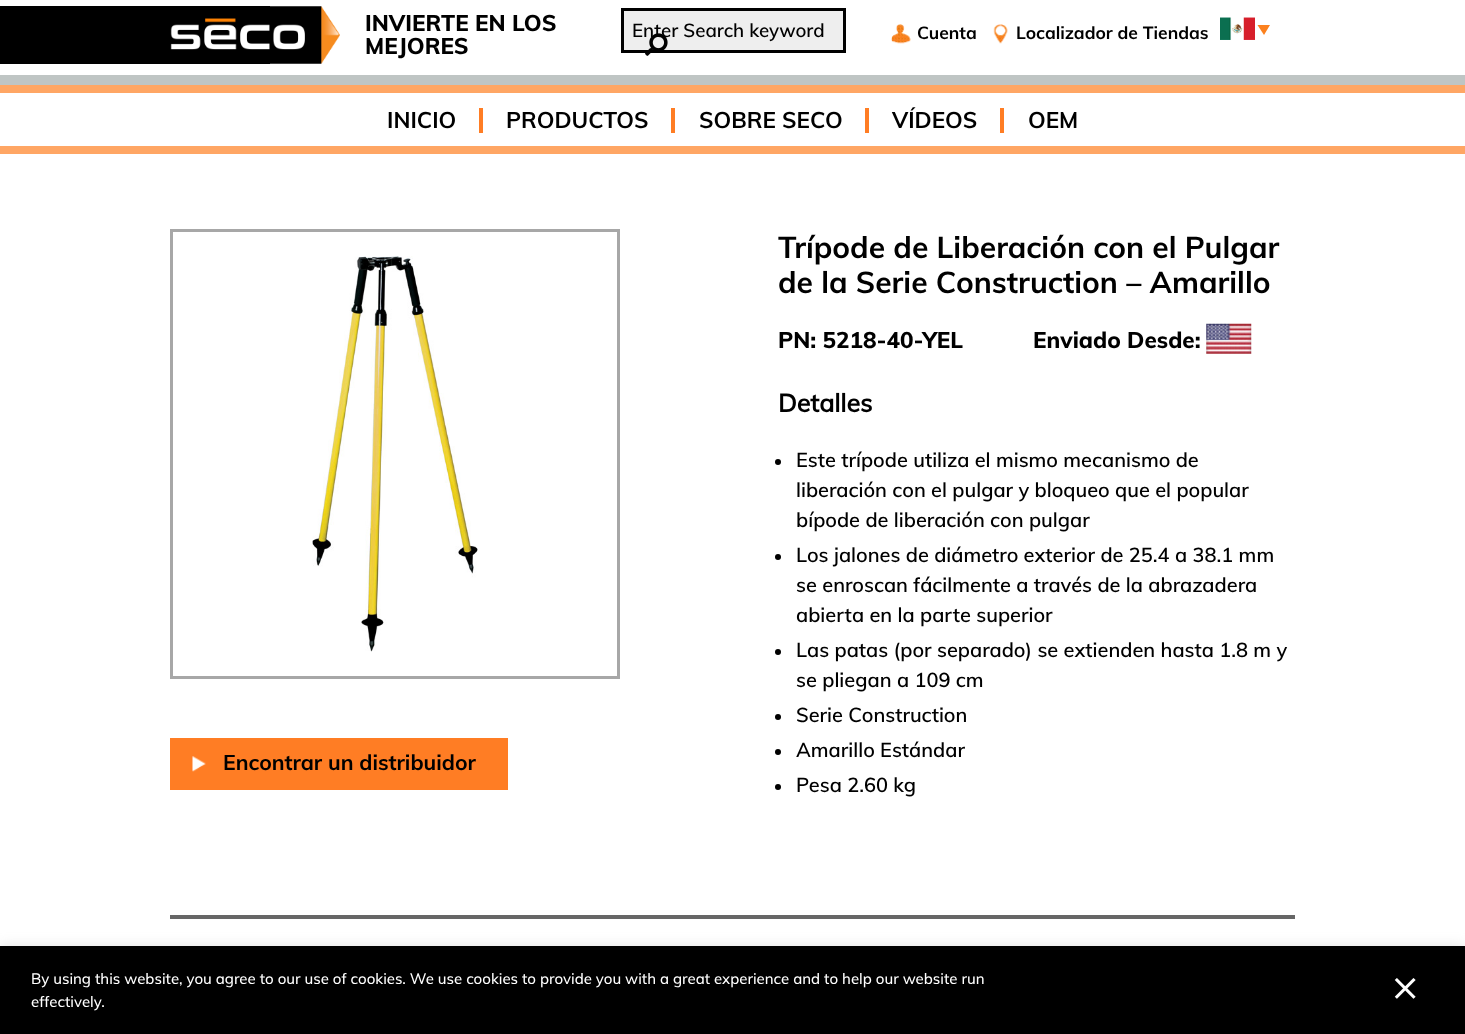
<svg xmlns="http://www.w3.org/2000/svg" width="1465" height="1034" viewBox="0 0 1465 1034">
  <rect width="100%" height="100%" fill="rgb(255,255,255)"/>
  <rect x="0" y="6" width="270" height="58" fill="rgb(0,0,0)"/>
  <image x="170" y="6" width="170" height="58" href="pic1.png"/>
  <g font-family="Muli" font-size="22.5" font-weight="800" fill="rgb(0,0,0)">
    <text>
      <tspan x="365" y="31">INVIERTE EN LOS</tspan>
      <tspan x="365" y="54">MEJORES</tspan>
    </text>
  </g>
  <rect x="622.5" y="9.5" width="222" height="42" fill="rgb(238,238,238)" stroke="rgb(0,0,0)" stroke-width="3"/>
  <text x="632" y="37" font-family="Muli" font-size="18.75" font-weight="600" fill="rgb(0,0,0)">Enter Search keyword</text>
  <image x="645" y="33" width="23" height="23" href="pic2.png"/>
  <image x="891" y="24" width="20" height="20" href="pic3.png"/>
  <text x="917" y="39" font-family="Muli" font-size="17.5" font-weight="bold" fill="rgb(0,0,0)">Cuenta</text>
  <image x="993" y="24" width="15" height="20" href="pic4.png"/>
  <text x="1016" y="39" font-family="Muli" font-size="17.5" font-weight="bold" fill="rgb(0,0,0)">Localizador de Tiendas</text>
  <image x="1220" y="17" width="35" height="23" href="pic5.png"/>
  <path d="M1257.5 25H1270L1264 35Z" fill="rgb(252,129,30)"/>
  <rect x="0" y="75" width="1465" height="10" fill="rgb(191,197,196)"/>
  <rect x="0" y="85" width="1465" height="8" fill="rgb(255,166,100)"/>
  <rect x="0" y="146" width="1465" height="8" fill="rgb(255,166,100)"/>
  <text x="387" y="128" font-family="Muli" font-size="22.5" font-weight="bold" fill="rgb(0,0,0)">INICIO</text>
  <rect x="479" y="108" width="4" height="25" fill="rgb(255,125,36)"/>
  <text x="506" y="128" font-family="Muli" font-size="22.5" font-weight="bold" fill="rgb(0,0,0)">PRODUCTOS</text>
  <rect x="671" y="108" width="4" height="25" fill="rgb(255,125,36)"/>
  <text x="699" y="128" font-family="Muli" font-size="22.5" font-weight="bold" fill="rgb(0,0,0)">SOBRE SECO</text>
  <rect x="865" y="108" width="4" height="25" fill="rgb(255,125,36)"/>
  <text x="892" y="128" font-family="Muli" font-size="22.5" font-weight="bold" fill="rgb(0,0,0)">VÍDEOS</text>
  <rect x="1000" y="108" width="4" height="25" fill="rgb(255,125,36)"/>
  <text x="1028" y="128" font-family="Muli" font-size="22.5" font-weight="bold" fill="rgb(0,0,0)">OEM</text>
  <rect x="171.5" y="230.5" width="447" height="447" fill="none" stroke="rgb(167,167,167)" stroke-width="3"/>
  <image x="312" y="256" width="166" height="396" href="pic6.png"/>
  <rect x="170" y="738" width="338" height="52" fill="rgb(255,125,36)"/>
  <image x="192" y="756" width="14" height="16" href="pic7.png"/>
  <text x="223" y="770" font-family="Muli" font-size="21.25" font-weight="bold" fill="rgb(0,0,0)">Encontrar un distribuidor</text>
  <g font-family="Muli" font-size="30" font-weight="bold" fill="rgb(0,0,0)">
    <text>
      <tspan x="778" y="258">Trípode de Liberación con el Pulgar</tspan>
      <tspan x="778" y="293">de la Serie Construction – Amarillo</tspan>
    </text>
  </g>
  <g font-family="Muli" font-size="22.5" font-weight="800" fill="rgb(0,0,0)">
    <text x="778" y="348">PN: 5218-40-YEL</text>
    <text x="1033" y="348">Enviado Desde:</text>
  </g>
  <image x="1206" y="323" width="46" height="31" href="pic8.png"/>
  <text x="778" y="412" font-family="'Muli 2'" font-size="25" font-weight="bold" fill="rgb(0,0,0)">Detalles</text>
  <circle cx="778" cy="462" r="3" fill="rgb(0,0,0)"/>
  <g font-family="Muli" font-size="20" font-weight="600" fill="rgb(0,0,0)">
    <text>
      <tspan x="796" y="467">Este trípode utiliza el mismo mecanismo de</tspan>
      <tspan x="796" y="497">liberación con el pulgar y bloqueo que el popular</tspan>
      <tspan x="796" y="527">bípode de liberación con pulgar</tspan>
    </text>
  </g>
  <circle cx="778" cy="557" r="3" fill="rgb(0,0,0)"/>
  <g font-family="Muli" font-size="20" font-weight="600" fill="rgb(0,0,0)">
    <text>
      <tspan x="796" y="562">Los jalones de diámetro exterior de 25.4 a 38.1 mm</tspan>
      <tspan x="796" y="592">se enroscan fácilmente a través de la abrazadera</tspan>
      <tspan x="796" y="622">abierta en la parte superior</tspan>
    </text>
  </g>
  <circle cx="778" cy="652" r="3" fill="rgb(0,0,0)"/>
  <g font-family="Muli" font-size="20" font-weight="600" fill="rgb(0,0,0)">
    <text>
      <tspan x="796" y="657">Las patas (por separado) se extienden hasta 1.8 m y</tspan>
      <tspan x="796" y="687">se pliegan a 109 cm</tspan>
    </text>
  </g>
  <circle cx="778" cy="717" r="3" fill="rgb(0,0,0)"/>
  <text x="796" y="722" font-family="Muli" font-size="20" font-weight="600" fill="rgb(0,0,0)">Serie Construction</text>
  <circle cx="778" cy="752" r="3" fill="rgb(0,0,0)"/>
  <text x="796" y="757" font-family="Muli" font-size="20" font-weight="600" fill="rgb(0,0,0)">Amarillo Estándar</text>
  <circle cx="778" cy="787" r="3" fill="rgb(0,0,0)"/>
  <text x="796" y="792" font-family="Muli" font-size="20" font-weight="600" fill="rgb(0,0,0)">Pesa 2.60 kg</text>
  <rect x="170" y="915" width="1125" height="4" fill="rgb(102,102,102)"/>
  <rect x="0" y="945" width="1465" height="89" fill="rgba(172,171,171,0.3)" filter="blur(6px)"/>
  <rect x="0" y="946" width="1465" height="88" fill="rgb(0,0,0)"/>
  <g font-family="Muli" font-size="15" font-weight="500" fill="rgb(255,255,255)">
    <text>
      <tspan x="31" y="984">By using this website, you agree to our use of cookies. We use cookies to provide you with a great experience and to help our website run</tspan>
      <tspan x="31" y="1007">effectively.</tspan>
    </text>
  </g>
  <text x="1392" y="1001" font-family="Muli" font-size="44" font-weight="500" fill="rgb(255,255,255)">×</text>
</svg>
